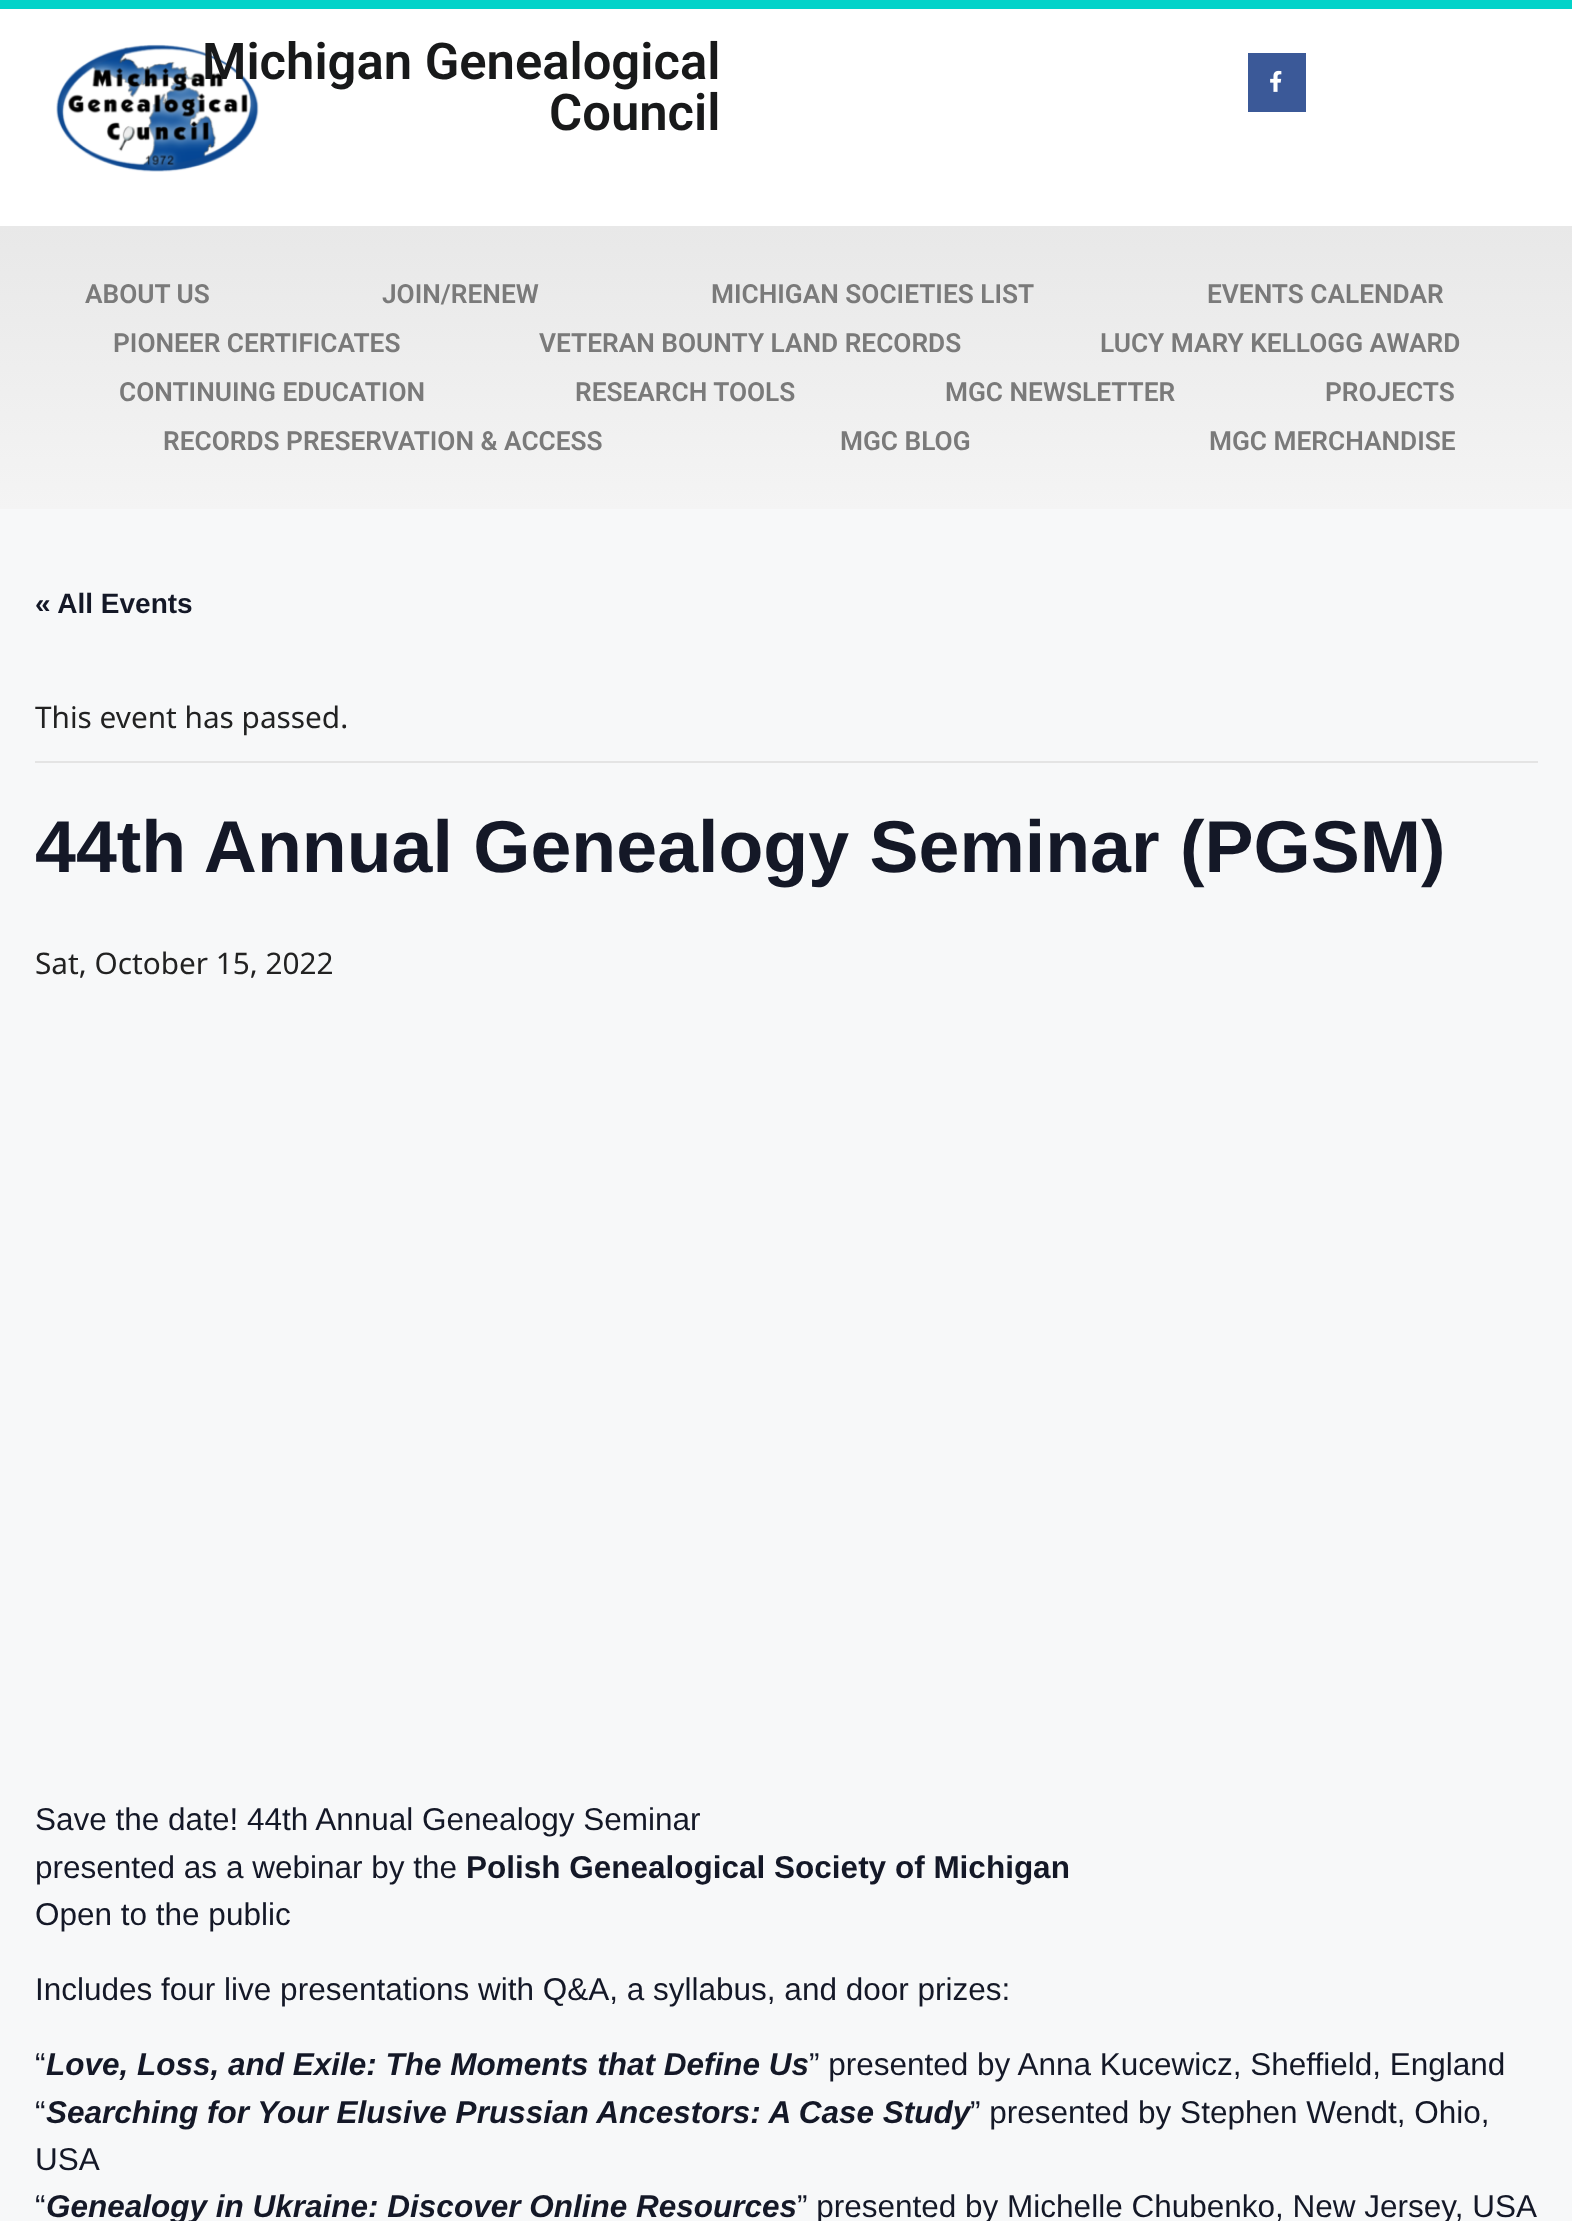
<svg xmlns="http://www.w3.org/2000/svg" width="1572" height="2221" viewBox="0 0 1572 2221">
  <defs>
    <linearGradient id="g1" gradientUnits="userSpaceOnUse" x1="787" y1="226" x2="787" y2="509"><stop offset="0" stop-color="rgb(232,232,232)"/><stop offset="1" stop-color="rgb(244,244,244)"/></linearGradient>
  </defs>
  <rect width="100%" height="100%" fill="rgb(247,248,249)"/>
  <rect x="0" y="9" width="1572" height="217" fill="rgb(255,255,255)"/>
  <rect x="0" y="0" width="1572" height="9" fill="rgb(2,211,201)"/>
  <image x="56" y="44" width="203" height="128" href="pic1.png"/>
  <g font-family="Roboto" font-size="50.75" font-weight="600" fill="rgb(24,25,26)">
    <text x="202" y="79">Michigan Genealogical</text>
    <text x="549" y="130">Council</text>
  </g>
  <rect x="1248" y="53" width="58" height="59" fill="rgb(59,89,152)"/>
  <image x="1270" y="70" width="12" height="22" href="pic2.png"/>
  <rect x="0" y="226" width="1572" height="283" fill="url(#g1)"/>
  <g font-family="Roboto" font-size="26.25" font-weight="600" fill="rgb(122,122,122)">
    <text x="85" y="303">ABOUT US</text>
    <text x="382" y="303">JOIN/RENEW</text>
    <text x="711" y="303">MICHIGAN SOCIETIES LIST</text>
    <text x="1207" y="303">EVENTS CALENDAR</text>
    <text x="113" y="352">PIONEER CERTIFICATES</text>
    <text x="539" y="352">VETERAN BOUNTY LAND RECORDS</text>
    <text x="1100" y="352">LUCY MARY KELLOGG AWARD</text>
    <text x="119" y="401">CONTINUING EDUCATION</text>
    <text x="575" y="401">RESEARCH TOOLS</text>
    <text x="945" y="401">MGC NEWSLETTER</text>
    <text x="1325" y="401">PROJECTS</text>
    <text x="163" y="450">RECORDS PRESERVATION &amp; ACCESS</text>
    <text x="840" y="450">MGC BLOG</text>
    <text x="1209" y="450">MGC MERCHANDISE</text>
  </g>
  <text x="35" y="613" font-family="Liberation Sans" font-size="28" font-weight="bold" fill="rgb(20,24,39)">« All Events</text>
  <rect x="35" y="761" width="1503" height="2" fill="rgb(228,228,228)"/>
  <text x="35" y="728" font-family="Noto Sans" font-size="29.75" fill="rgb(34,34,34)">This event has passed.</text>
  <text x="35" y="872" font-family="Liberation Sans" font-size="73.5" font-weight="bold" fill="rgb(20,24,39)">44th Annual Genealogy Seminar (PGSM)</text>
  <text x="35" y="974" font-family="Noto Sans" font-size="29.75" fill="rgb(34,34,34)">Sat, October 15, 2022</text>
  <g font-family="Liberation Sans" font-size="31.5" fill="rgb(20,24,39)">
    <text>
      <tspan x="35" y="1830">Save the date! 44th Annual Genealogy Seminar</tspan>
      <tspan x="35" y="1878">presented as a webinar by the</tspan>
    </text>
  </g>
  <text x="466" y="1878" font-family="Liberation Sans" font-size="31.5" font-weight="bold" fill="rgb(20,24,39)">Polish Genealogical Society of Michigan</text>
  <g font-family="Liberation Sans" font-size="31.5" fill="rgb(20,24,39)">
    <text x="35" y="1925">Open to the public</text>
    <text x="35" y="2000">Includes four live presentations with Q&amp;A, a syllabus, and door prizes:</text>
    <text x="35" y="2075">“</text>
  </g>
  <text x="46" y="2075" font-family="Liberation Sans" font-size="31.5" font-weight="bold" font-style="italic" fill="rgb(20,24,39)">Love, Loss, and Exile: The Moments that Define Us</text>
  <g font-family="Liberation Sans" font-size="31.5" fill="rgb(20,24,39)">
    <text x="809" y="2075">” presented by Anna Kucewicz, Sheffield, England</text>
    <text x="35" y="2123">“</text>
  </g>
  <text x="46" y="2123" font-family="Liberation Sans" font-size="31.5" font-weight="bold" font-style="italic" fill="rgb(20,24,39)">Searching for Your Elusive Prussian Ancestors: A Case Study</text>
  <g font-family="Liberation Sans" font-size="31.5" fill="rgb(20,24,39)">
    <text x="970" y="2123">” presented by Stephen Wendt, Ohio,</text>
    <text>
      <tspan x="35" y="2170">USA</tspan>
      <tspan x="35" y="2217">“</tspan>
    </text>
  </g>
  <text x="46" y="2217" font-family="Liberation Sans" font-size="31.5" font-weight="bold" font-style="italic" fill="rgb(20,24,39)">Genealogy in Ukraine: Discover Online Resources</text>
  <text x="797" y="2217" font-family="Liberation Sans" font-size="31.5" fill="rgb(20,24,39)">” presented by Michelle Chubenko, New Jersey, USA</text>
</svg>
